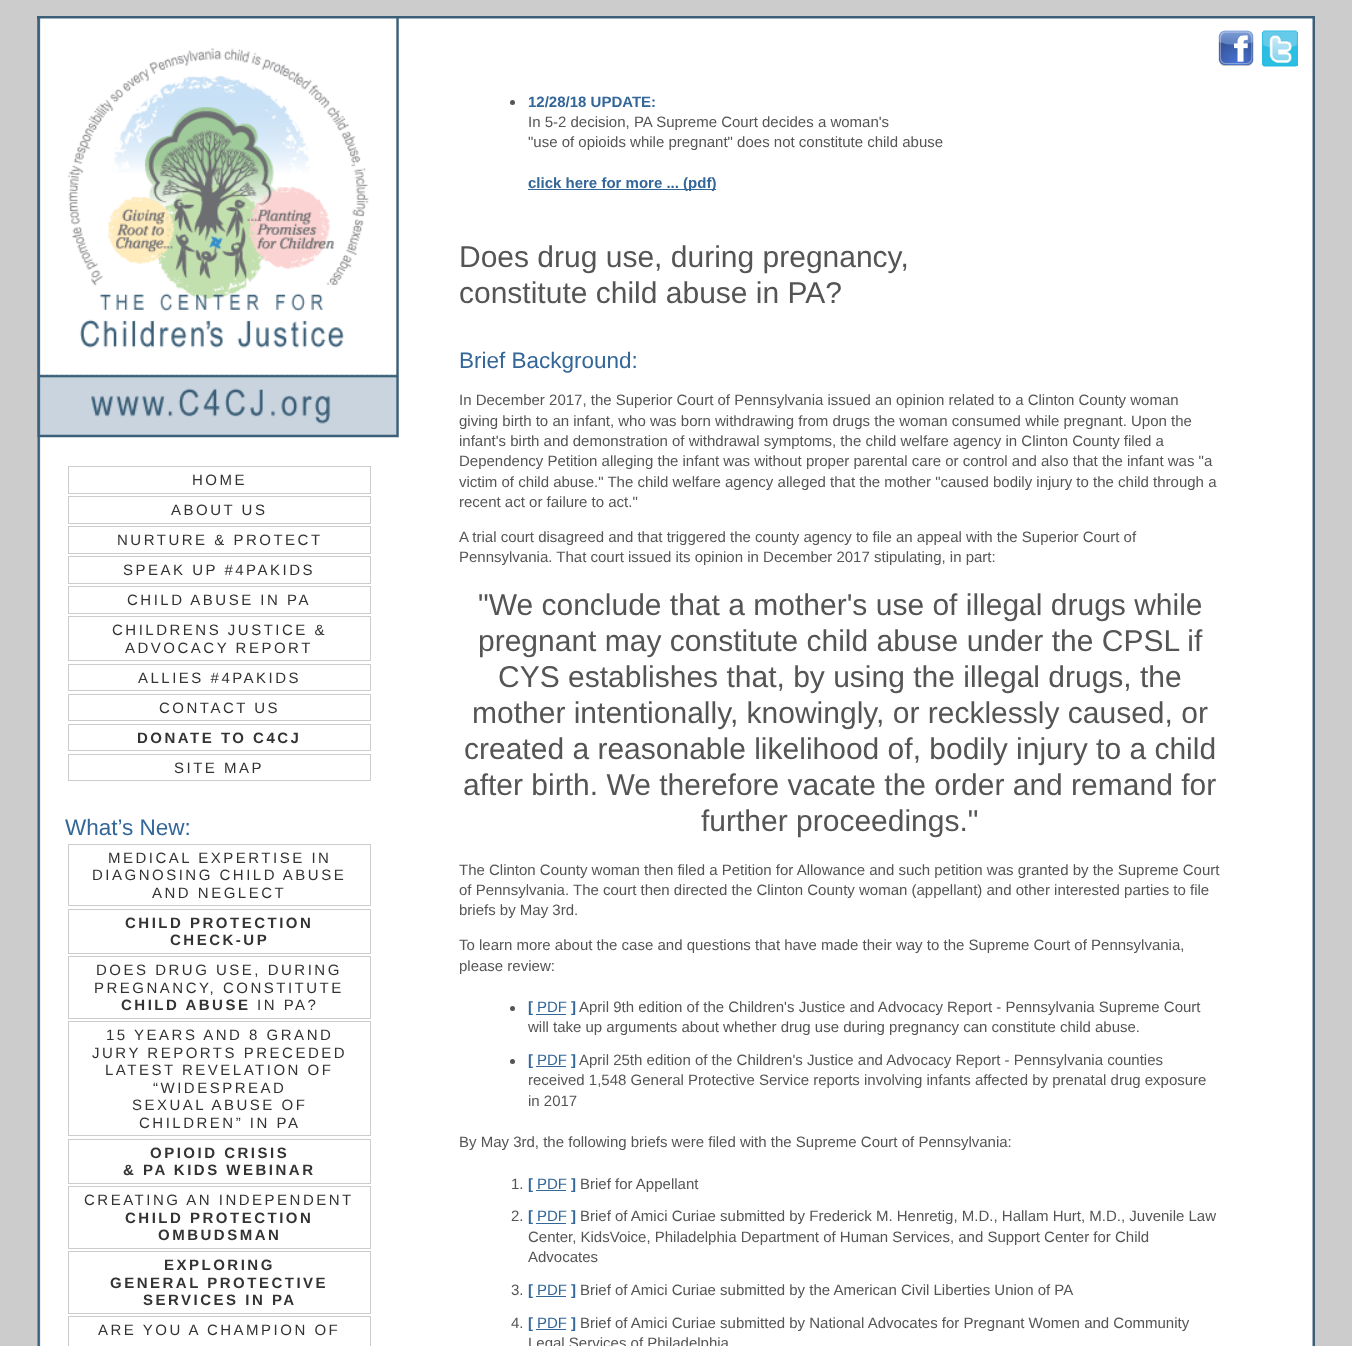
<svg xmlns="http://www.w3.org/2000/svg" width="1352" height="1346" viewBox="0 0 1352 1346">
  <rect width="100%" height="100%" fill="rgb(204,204,204)"/>
  <rect x="37" y="16" width="1278" height="3" fill="rgb(59,95,120)"/>
  <image x="37" y="18" width="1278" height="1328" href="pic1.png"/>
  <image x="37" y="18" width="362" height="420" href="pic2.png"/>
  <rect x="68.5" y="466.5" width="302" height="27" fill="none" stroke="rgb(204,204,204)"/>
  <text x="192" y="485" font-family="Liberation Sans" font-size="15" letter-spacing="2.5" fill="rgb(51,51,51)">HOME</text>
  <rect x="68.5" y="496.5" width="302" height="27" fill="none" stroke="rgb(204,204,204)"/>
  <text x="171" y="515" font-family="Liberation Sans" font-size="15" letter-spacing="2.5" fill="rgb(51,51,51)">ABOUT US</text>
  <rect x="68.5" y="526.5" width="302" height="27" fill="none" stroke="rgb(204,204,204)"/>
  <text x="117" y="545" font-family="Liberation Sans" font-size="15" letter-spacing="2.5" fill="rgb(51,51,51)">NURTURE &amp; PROTECT</text>
  <rect x="68.5" y="556.5" width="302" height="27" fill="none" stroke="rgb(204,204,204)"/>
  <text x="123" y="575" font-family="Liberation Sans" font-size="15" letter-spacing="2.5" fill="rgb(51,51,51)">SPEAK UP #4PAKIDS</text>
  <rect x="68.5" y="586.5" width="302" height="27" fill="none" stroke="rgb(204,204,204)"/>
  <text x="127" y="605" font-family="Liberation Sans" font-size="15" letter-spacing="2.5" fill="rgb(51,51,51)">CHILD ABUSE IN PA</text>
  <rect x="68.5" y="616.5" width="302" height="44" fill="none" stroke="rgb(204,204,204)"/>
  <g font-family="Liberation Sans" font-size="15" letter-spacing="2.5" fill="rgb(51,51,51)">
    <text x="112" y="635">CHILDRENS JUSTICE &amp;</text>
    <text x="125" y="653">ADVOCACY REPORT</text>
  </g>
  <rect x="68.5" y="664.5" width="302" height="26" fill="none" stroke="rgb(204,204,204)"/>
  <text x="138" y="683" font-family="Liberation Sans" font-size="15" letter-spacing="2.5" fill="rgb(51,51,51)">ALLIES #4PAKIDS</text>
  <rect x="68.5" y="694.5" width="302" height="26" fill="none" stroke="rgb(204,204,204)"/>
  <text x="159" y="713" font-family="Liberation Sans" font-size="15" letter-spacing="2.5" fill="rgb(51,51,51)">CONTACT US</text>
  <rect x="68.5" y="724.5" width="302" height="26" fill="none" stroke="rgb(204,204,204)"/>
  <text x="137" y="743" font-family="Liberation Sans" font-size="15" font-weight="bold" letter-spacing="2.5" fill="rgb(51,51,51)">DONATE TO C4CJ</text>
  <rect x="68.5" y="754.5" width="302" height="26" fill="none" stroke="rgb(204,204,204)"/>
  <text x="174" y="773" font-family="Liberation Sans" font-size="15" letter-spacing="2.5" fill="rgb(51,51,51)">SITE MAP</text>
  <text x="65" y="835" font-family="Liberation Sans" font-size="22.5" fill="rgb(51,102,153)">What’s New:</text>
  <rect x="68.5" y="844.5" width="302" height="61" fill="none" stroke="rgb(204,204,204)"/>
  <g font-family="Liberation Sans" font-size="15" letter-spacing="2.5" fill="rgb(51,51,51)">
    <text x="108" y="863">MEDICAL EXPERTISE IN</text>
    <text x="92" y="880">DIAGNOSING CHILD ABUSE</text>
    <text x="152" y="898">AND NEGLECT</text>
  </g>
  <rect x="68.5" y="909.5" width="302" height="44" fill="none" stroke="rgb(204,204,204)"/>
  <g font-family="Liberation Sans" font-size="15" font-weight="bold" letter-spacing="2.5" fill="rgb(51,51,51)">
    <text x="125" y="928">CHILD PROTECTION</text>
    <text x="170" y="945">CHECK-UP</text>
  </g>
  <rect x="68.5" y="956.5" width="302" height="62" fill="none" stroke="rgb(204,204,204)"/>
  <g font-family="Liberation Sans" font-size="15" letter-spacing="2.5" fill="rgb(51,51,51)">
    <text x="96" y="975">DOES DRUG USE, DURING</text>
    <text x="94" y="993">PREGNANCY, CONSTITUTE</text>
  </g>
  <text x="121" y="1010" font-family="Liberation Sans" font-size="15" font-weight="bold" letter-spacing="2.5" fill="rgb(51,51,51)">CHILD ABUSE</text>
  <text x="257" y="1010" font-family="Liberation Sans" font-size="15" letter-spacing="2.5" fill="rgb(51,51,51)">IN PA?</text>
  <rect x="68.5" y="1021.5" width="302" height="114" fill="none" stroke="rgb(204,204,204)"/>
  <g font-family="Liberation Sans" font-size="15" letter-spacing="2.5" fill="rgb(51,51,51)">
    <text x="106" y="1040">15 YEARS AND 8 GRAND</text>
    <text x="92" y="1058">JURY REPORTS PRECEDED</text>
    <text x="105" y="1075">LATEST REVELATION OF</text>
    <text x="153" y="1093">“WIDESPREAD</text>
    <text x="132" y="1110">SEXUAL ABUSE OF</text>
    <text x="139" y="1128">CHILDREN” IN PA</text>
  </g>
  <rect x="68.5" y="1139.5" width="302" height="44" fill="none" stroke="rgb(204,204,204)"/>
  <g font-family="Liberation Sans" font-size="15" font-weight="bold" letter-spacing="2.5" fill="rgb(51,51,51)">
    <text x="150" y="1158">OPIOID CRISIS</text>
    <text x="123" y="1175">&amp; PA KIDS WEBINAR</text>
  </g>
  <rect x="68.5" y="1186.5" width="302" height="62" fill="none" stroke="rgb(204,204,204)"/>
  <text x="84" y="1205" font-family="Liberation Sans" font-size="15" letter-spacing="2.5" fill="rgb(51,51,51)">CREATING AN INDEPENDENT</text>
  <g font-family="Liberation Sans" font-size="15" font-weight="bold" letter-spacing="2.5" fill="rgb(51,51,51)">
    <text x="125" y="1223">CHILD PROTECTION</text>
    <text x="158" y="1240">OMBUDSMAN</text>
  </g>
  <rect x="68.5" y="1251.5" width="302" height="62" fill="none" stroke="rgb(204,204,204)"/>
  <g font-family="Liberation Sans" font-size="15" font-weight="bold" letter-spacing="2.5" fill="rgb(51,51,51)">
    <text x="164" y="1270">EXPLORING</text>
    <text x="110" y="1288">GENERAL PROTECTIVE</text>
    <text x="143" y="1305">SERVICES IN PA</text>
  </g>
  <rect x="68.5" y="1316.5" width="302" height="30" fill="none" stroke="rgb(204,204,204)"/>
  <text x="98" y="1335" font-family="Liberation Sans" font-size="15" letter-spacing="2.5" fill="rgb(51,51,51)">ARE YOU A CHAMPION OF</text>
  <image x="1218" y="30" width="36" height="36" href="pic3.png"/>
  <image x="1262" y="30" width="36" height="37" href="pic4.png"/>
  <circle cx="512.5" cy="102.5" r="2.5" fill="rgb(85,85,85)"/>
  <text x="528" y="107" font-family="Liberation Sans" font-size="15" font-weight="bold" fill="rgb(51,102,153)">12/28/18 UPDATE:</text>
  <g font-family="Liberation Sans" font-size="15" fill="rgb(85,85,85)">
    <text>
      <tspan x="528" y="127">In 5-2 decision, PA Supreme Court decides a woman's</tspan>
      <tspan x="528" y="147">"use of opioids while pregnant" does not constitute child abuse</tspan>
    </text>
  </g>
  <rect x="528" y="189" width="188" height="1" fill="rgb(51,102,153)"/>
  <text x="528" y="188" font-family="Liberation Sans" font-size="15" font-weight="bold" fill="rgb(51,102,153)">click here for more ... (pdf)</text>
  <g font-family="Liberation Sans" font-size="30" fill="rgb(85,85,85)">
    <text>
      <tspan x="459" y="267">Does drug use, during pregnancy,</tspan>
      <tspan x="459" y="303">constitute child abuse in PA?</tspan>
    </text>
  </g>
  <text x="459" y="368" font-family="Liberation Sans" font-size="22.5" fill="rgb(51,102,153)">Brief Background:</text>
  <g font-family="Liberation Sans" font-size="15" fill="rgb(85,85,85)">
    <text>
      <tspan x="459" y="405">In December 2017, the Superior Court of Pennsylvania issued an opinion related to a Clinton County woman</tspan>
      <tspan x="459" y="426">giving birth to an infant, who was born withdrawing from drugs the woman consumed while pregnant. Upon the</tspan>
      <tspan x="459" y="446">infant's birth and demonstration of withdrawal symptoms, the child welfare agency in Clinton County filed a</tspan>
      <tspan x="459" y="466">Dependency Petition alleging the infant was without proper parental care or control and also that the infant was "a</tspan>
      <tspan x="459" y="487">victim of child abuse." The child welfare agency alleged that the mother "caused bodily injury to the child through a</tspan>
      <tspan x="459" y="507">recent act or failure to act."</tspan>
    </text>
    <text>
      <tspan x="459" y="542">A trial court disagreed and that triggered the county agency to file an appeal with the Superior Court of</tspan>
      <tspan x="459" y="562">Pennsylvania. That court issued its opinion in December 2017 stipulating, in part:</tspan>
    </text>
  </g>
  <g font-family="Liberation Sans" font-size="30" fill="rgb(85,85,85)">
    <text>
      <tspan x="478" y="615">"We conclude that a mother's use of illegal drugs while</tspan>
      <tspan x="478" y="651">pregnant may constitute child abuse under the CPSL if</tspan>
    </text>
    <text x="498" y="687">CYS establishes that, by using the illegal drugs, the</text>
    <text x="472" y="723">mother intentionally, knowingly, or recklessly caused, or</text>
    <text x="464" y="759">created a reasonable likelihood of, bodily injury to a child</text>
    <text x="463" y="795">after birth. We therefore vacate the order and remand for</text>
    <text x="701" y="831">further proceedings."</text>
  </g>
  <g font-family="Liberation Sans" font-size="15" fill="rgb(85,85,85)">
    <text>
      <tspan x="459" y="875">The Clinton County woman then filed a Petition for Allowance and such petition was granted by the Supreme Court</tspan>
      <tspan x="459" y="895">of Pennsylvania. The court then directed the Clinton County woman (appellant) and other interested parties to file</tspan>
      <tspan x="459" y="915">briefs by May 3rd.</tspan>
    </text>
    <text>
      <tspan x="459" y="950">To learn more about the case and questions that have made their way to the Supreme Court of Pennsylvania,</tspan>
      <tspan x="459" y="971">please review:</tspan>
    </text>
  </g>
  <circle cx="512.5" cy="1008.5" r="2.5" fill="rgb(85,85,85)"/>
  <text x="528" y="1012" font-family="Liberation Sans" font-size="15" font-weight="bold" fill="rgb(51,102,153)">[</text>
  <rect x="536" y="1014" width="30" height="1" fill="rgb(51,102,153)"/>
  <text x="537" y="1012" font-family="Liberation Sans" font-size="15" fill="rgb(51,102,153)">PDF</text>
  <text x="571" y="1012" font-family="Liberation Sans" font-size="15" font-weight="bold" fill="rgb(51,102,153)">]</text>
  <g font-family="Liberation Sans" font-size="15" fill="rgb(85,85,85)">
    <text x="579" y="1012">April 9th edition of the Children's Justice and Advocacy Report - Pennsylvania Supreme Court</text>
    <text x="528" y="1032">will take up arguments about whether drug use during pregnancy can constitute child abuse.</text>
  </g>
  <circle cx="512.5" cy="1061.5" r="2.5" fill="rgb(85,85,85)"/>
  <text x="528" y="1065" font-family="Liberation Sans" font-size="15" font-weight="bold" fill="rgb(51,102,153)">[</text>
  <rect x="536" y="1066" width="30" height="1" fill="rgb(51,102,153)"/>
  <text x="537" y="1065" font-family="Liberation Sans" font-size="15" fill="rgb(51,102,153)">PDF</text>
  <text x="571" y="1065" font-family="Liberation Sans" font-size="15" font-weight="bold" fill="rgb(51,102,153)">]</text>
  <g font-family="Liberation Sans" font-size="15" fill="rgb(85,85,85)">
    <text x="579" y="1065">April 25th edition of the Children's Justice and Advocacy Report - Pennsylvania counties</text>
    <text>
      <tspan x="528" y="1085">received 1,548 General Protective Service reports involving infants affected by prenatal drug exposure</tspan>
      <tspan x="528" y="1106">in 2017</tspan>
    </text>
    <text x="459" y="1147">By May 3rd, the following briefs were filed with the Supreme Court of Pennsylvania:</text>
    <text x="511" y="1189">1.</text>
  </g>
  <text x="528" y="1189" font-family="Liberation Sans" font-size="15" font-weight="bold" fill="rgb(51,102,153)">[</text>
  <rect x="536" y="1190" width="30" height="1" fill="rgb(51,102,153)"/>
  <text x="537" y="1189" font-family="Liberation Sans" font-size="15" fill="rgb(51,102,153)">PDF</text>
  <text x="571" y="1189" font-family="Liberation Sans" font-size="15" font-weight="bold" fill="rgb(51,102,153)">]</text>
  <g font-family="Liberation Sans" font-size="15" fill="rgb(85,85,85)">
    <text x="580" y="1189">Brief for Appellant</text>
    <text x="511" y="1221">2.</text>
  </g>
  <text x="528" y="1221" font-family="Liberation Sans" font-size="15" font-weight="bold" fill="rgb(51,102,153)">[</text>
  <rect x="536" y="1223" width="30" height="1" fill="rgb(51,102,153)"/>
  <text x="537" y="1221" font-family="Liberation Sans" font-size="15" fill="rgb(51,102,153)">PDF</text>
  <text x="571" y="1221" font-family="Liberation Sans" font-size="15" font-weight="bold" fill="rgb(51,102,153)">]</text>
  <g font-family="Liberation Sans" font-size="15" fill="rgb(85,85,85)">
    <text x="580" y="1221">Brief of Amici Curiae submitted by Frederick M. Henretig, M.D., Hallam Hurt, M.D., Juvenile Law</text>
    <text>
      <tspan x="528" y="1242">Center, KidsVoice, Philadelphia Department of Human Services, and Support Center for Child</tspan>
      <tspan x="528" y="1262">Advocates</tspan>
    </text>
    <text x="511" y="1295">3.</text>
  </g>
  <text x="528" y="1295" font-family="Liberation Sans" font-size="15" font-weight="bold" fill="rgb(51,102,153)">[</text>
  <rect x="536" y="1296" width="30" height="1" fill="rgb(51,102,153)"/>
  <text x="537" y="1295" font-family="Liberation Sans" font-size="15" fill="rgb(51,102,153)">PDF</text>
  <text x="571" y="1295" font-family="Liberation Sans" font-size="15" font-weight="bold" fill="rgb(51,102,153)">]</text>
  <g font-family="Liberation Sans" font-size="15" fill="rgb(85,85,85)">
    <text x="580" y="1295">Brief of Amici Curiae submitted by the American Civil Liberties Union of PA</text>
    <text x="511" y="1328">4.</text>
  </g>
  <text x="528" y="1328" font-family="Liberation Sans" font-size="15" font-weight="bold" fill="rgb(51,102,153)">[</text>
  <rect x="536" y="1329" width="30" height="1" fill="rgb(51,102,153)"/>
  <text x="537" y="1328" font-family="Liberation Sans" font-size="15" fill="rgb(51,102,153)">PDF</text>
  <text x="571" y="1328" font-family="Liberation Sans" font-size="15" font-weight="bold" fill="rgb(51,102,153)">]</text>
  <g font-family="Liberation Sans" font-size="15" fill="rgb(85,85,85)">
    <text x="580" y="1328">Brief of Amici Curiae submitted by National Advocates for Pregnant Women and Community</text>
    <text x="528" y="1348">Legal Services of Philadelphia</text>
  </g>
</svg>
